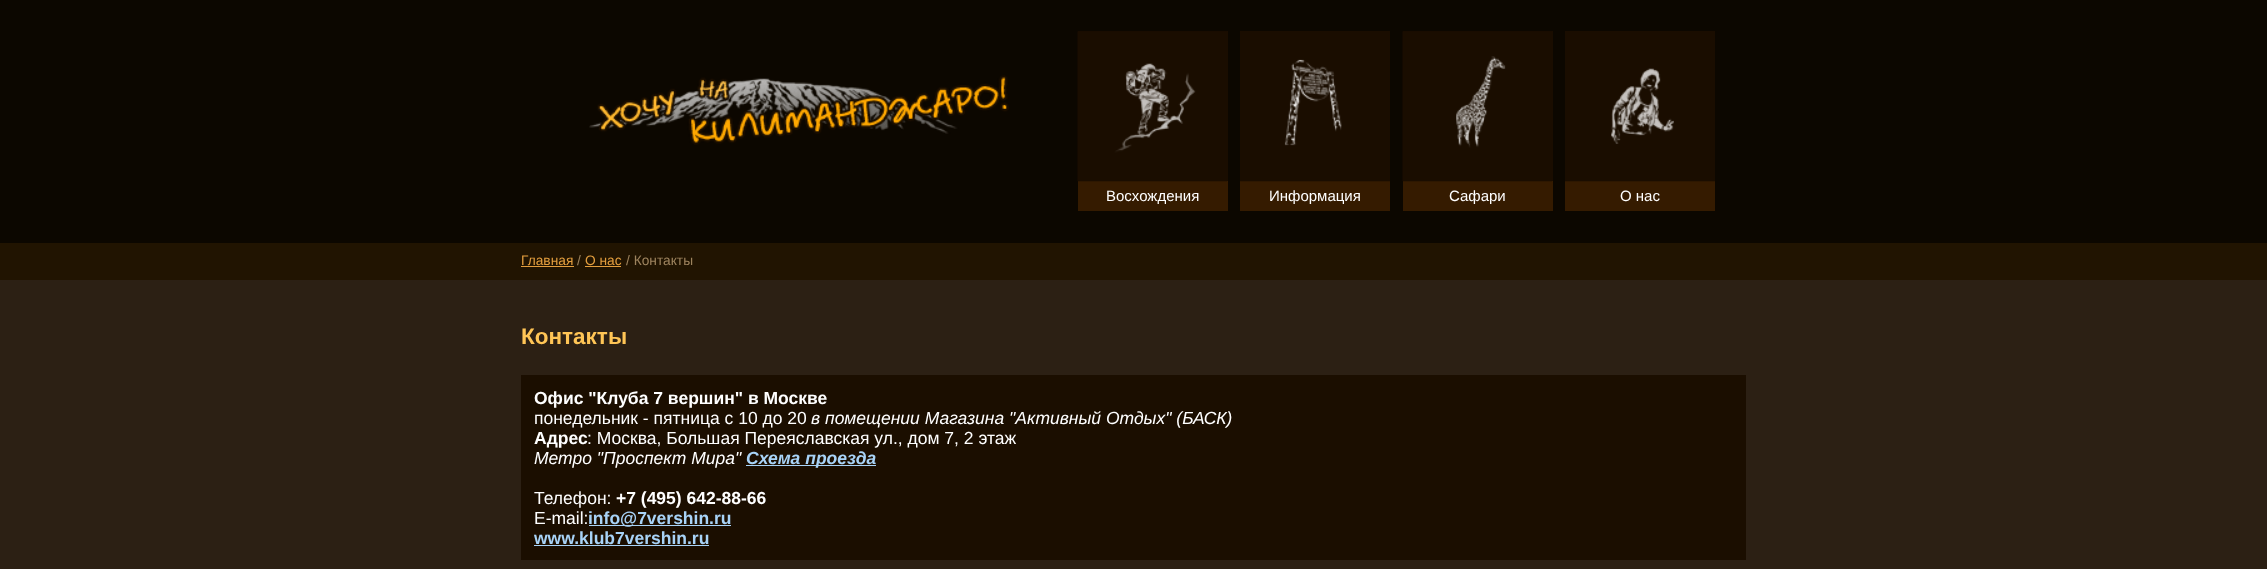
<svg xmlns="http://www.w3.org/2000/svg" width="2267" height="569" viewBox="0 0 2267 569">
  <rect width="100%" height="100%" fill="rgb(12,7,0)"/>
  <image x="589" y="75" width="420" height="70" href="pic1.png"/>
  <rect x="1078" y="31" width="150" height="150" fill="rgb(26,13,0)"/>
  <rect x="1078" y="181" width="150" height="30" fill="rgb(53,27,0)"/>
  <image x="1077" y="31" width="150" height="151" href="pic2.png"/>
  <rect x="1240" y="31" width="150" height="28" fill="rgb(26,13,0)"/>
  <rect x="1240" y="181" width="150" height="30" fill="rgb(53,27,0)"/>
  <image x="1240" y="59" width="150" height="123" href="pic3.png"/>
  <rect x="1403" y="31" width="150" height="150" fill="rgb(26,13,0)"/>
  <rect x="1403" y="181" width="150" height="30" fill="rgb(53,27,0)"/>
  <image x="1402" y="31" width="150" height="151" href="pic4.png"/>
  <rect x="1565" y="31" width="150" height="37" fill="rgb(26,13,0)"/>
  <rect x="1565" y="181" width="150" height="30" fill="rgb(53,27,0)"/>
  <image x="1565" y="68" width="150" height="114" href="pic5.png"/>
  <g font-family="Liberation Sans" font-size="15" fill="rgb(255,255,255)">
    <text x="1106" y="201">Восхождения</text>
    <text x="1269" y="201">Информация</text>
    <text x="1449" y="201">Сафари</text>
    <text x="1620" y="201">О нас</text>
  </g>
  <rect x="0" y="243" width="2267" height="37" fill="rgb(33,20,1)"/>
  <text x="521" y="265" font-family="Liberation Sans" font-size="13.75" fill="rgb(227,158,62)">Главная</text>
  <rect x="521" y="266" width="53" height="1" fill="rgb(227,158,62)"/>
  <text x="577" y="265" font-family="Liberation Sans" font-size="13.75" fill="rgb(157,131,94)">/</text>
  <text x="585" y="265" font-family="Liberation Sans" font-size="13.75" fill="rgb(227,158,62)">О нас</text>
  <rect x="585" y="266" width="36" height="1" fill="rgb(227,158,62)"/>
  <text x="626" y="265" font-family="Liberation Sans" font-size="13.75" fill="rgb(157,131,94)">/ Контакты</text>
  <rect x="0" y="280" width="2267" height="289" fill="rgb(44,32,20)"/>
  <text x="521" y="344" font-family="Liberation Sans" font-size="22.5" font-weight="bold" fill="rgb(255,197,86)">Контакты</text>
  <rect x="521" y="375" width="1225" height="185" fill="rgb(27,14,0)"/>
  <text x="534" y="404" font-family="Liberation Sans" font-size="17.5" font-weight="bold" fill="rgb(255,255,255)">Офис "Клуба 7 вершин" в Москве</text>
  <text x="534" y="424" font-family="Liberation Sans" font-size="17.5" fill="rgb(255,255,255)">понедельник - пятница с 10 до 20</text>
  <text x="811" y="424" font-family="Liberation Sans" font-size="17.5" font-style="italic" fill="rgb(255,255,255)">в помещении Магазина "Активный Отдых" (БАСК)</text>
  <text x="534" y="444" font-family="Liberation Sans" font-size="17.5" font-weight="bold" fill="rgb(255,255,255)">Адрес</text>
  <text x="587" y="444" font-family="Liberation Sans" font-size="17.5" fill="rgb(255,255,255)">: Москва, Большая Переяславская ул., дом 7, 2 этаж</text>
  <text x="534" y="464" font-family="Liberation Sans" font-size="17.5" font-style="italic" fill="rgb(255,255,255)">Метро "Проспект Мира"</text>
  <rect x="746" y="465" width="130" height="1" fill="rgb(168,211,247)"/>
  <text x="746" y="464" font-family="Liberation Sans" font-size="17.5" font-weight="bold" font-style="italic" fill="rgb(168,211,247)">Схема проезда</text>
  <text x="534" y="504" font-family="Liberation Sans" font-size="17.5" fill="rgb(255,255,255)">Телефон:</text>
  <text x="616" y="504" font-family="Liberation Sans" font-size="17.5" font-weight="bold" fill="rgb(255,255,255)">+7 (495) 642-88-66</text>
  <text x="534" y="524" font-family="Liberation Sans" font-size="17.5" fill="rgb(255,255,255)">E-mail:</text>
  <rect x="589" y="525" width="142" height="1" fill="rgb(168,211,247)"/>
  <g font-family="Liberation Sans" font-size="17.5" font-weight="bold" fill="rgb(168,211,247)">
    <text x="588" y="524">info@7vershin.ru</text>
    <text x="534" y="544">www.klub7vershin.ru</text>
  </g>
  <rect x="534" y="545" width="175" height="1" fill="rgb(168,211,247)"/>
</svg>
